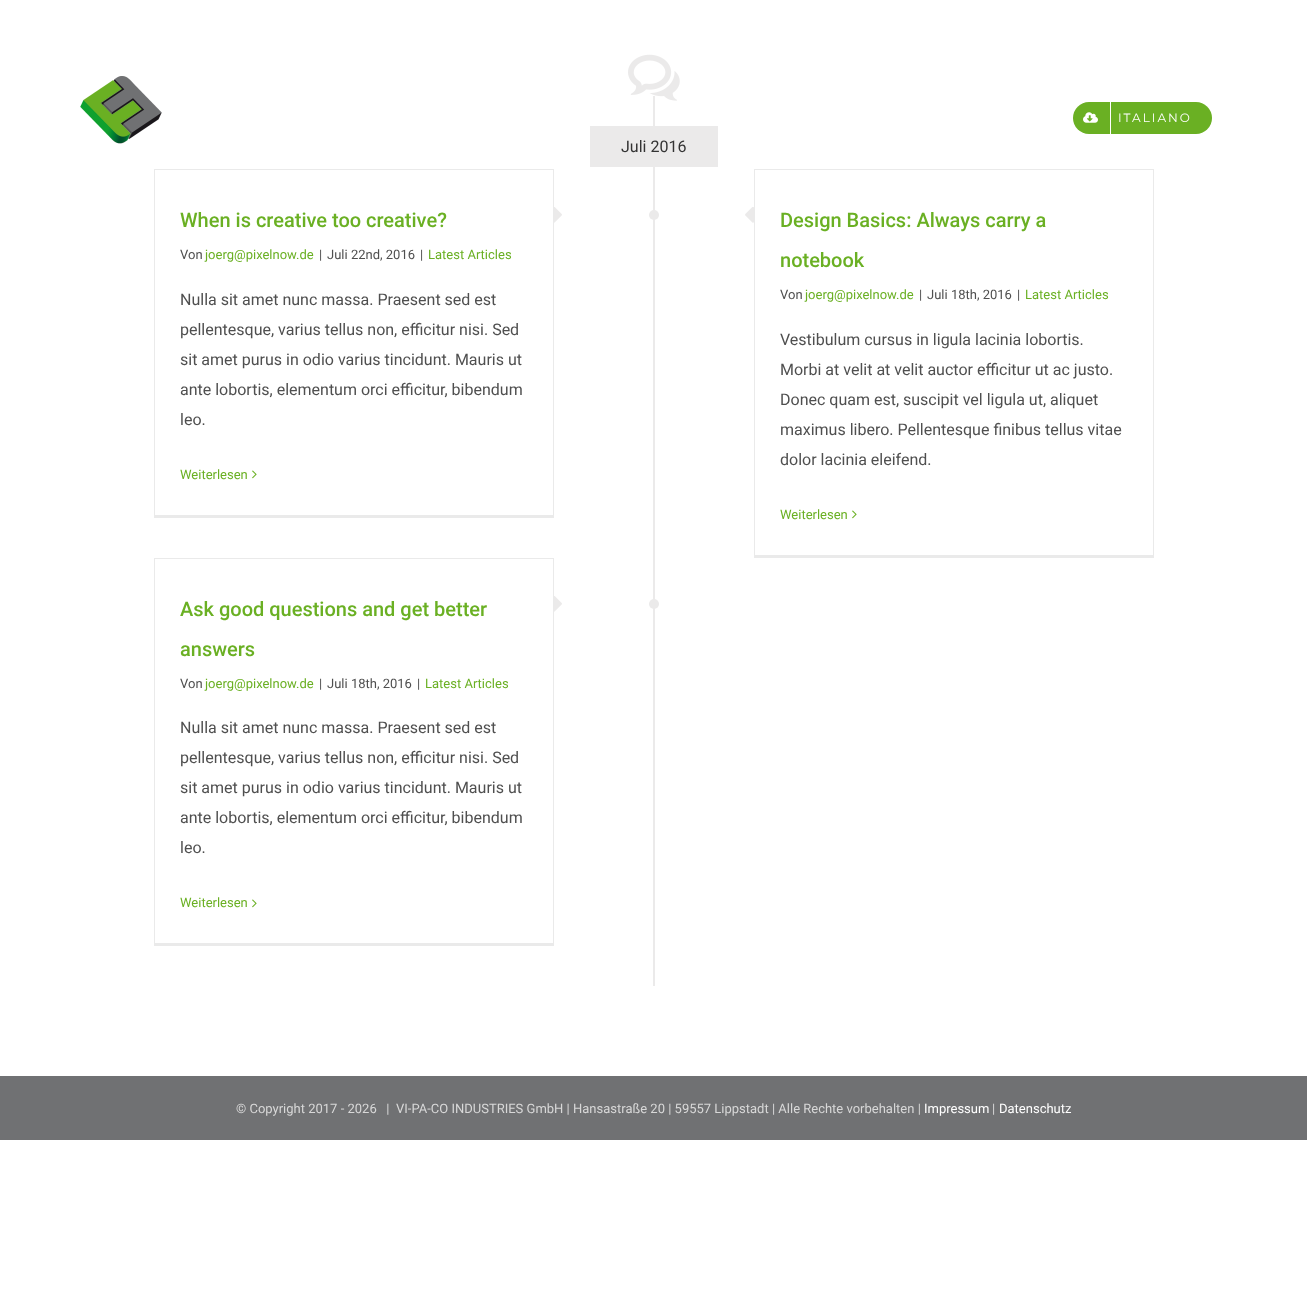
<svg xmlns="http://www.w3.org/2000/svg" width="1307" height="1293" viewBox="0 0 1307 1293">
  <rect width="100%" height="100%" fill="rgb(255,255,255)"/>
  <image x="80" y="76" width="82" height="68" href="pic1.png"/>
  <rect x="1073" y="102" width="139" height="32" rx="16" fill="rgb(106,176,35)"/>
  <rect x="1110" y="102" width="1" height="32" fill="rgb(255,255,255)"/>
  <image x="1083" y="112" width="15" height="11" href="pic2.png"/>
  <text x="1118" y="122" font-family="Montserrat" font-size="12" font-weight="100" letter-spacing="2" fill="rgb(255,255,255)">ITALIANO</text>
  <image x="628" y="54" width="52" height="47" href="pic3.png"/>
  <rect x="653" y="96" width="2" height="890" fill="rgb(235,234,234)"/>
  <rect x="590" y="126" width="128" height="41" fill="rgb(235,234,234)"/>
  <text x="621" y="152" font-family="Roboto" font-size="16" fill="rgb(51,51,51)">Juli 2016</text>
  <rect x="154" y="169" width="400" height="1" fill="rgb(234,234,234)"/>
  <rect x="553" y="169" width="1" height="349" fill="rgb(234,234,234)"/>
  <rect x="154" y="515" width="400" height="3" fill="rgb(234,234,234)"/>
  <rect x="154" y="169" width="1" height="349" fill="rgb(234,234,234)"/>
  <text x="180" y="227" font-family="Roboto" font-size="20" font-weight="500" fill="rgb(106,176,35)">When is creative too creative?</text>
  <text x="180" y="259" font-family="Roboto" font-size="13" fill="rgb(79,79,79)">Von</text>
  <text x="205" y="259" font-family="Roboto" font-size="13" fill="rgb(106,176,35)">joerg@pixelnow.de</text>
  <g font-family="Roboto" font-size="13" fill="rgb(79,79,79)">
    <text x="319" y="259">|</text>
    <text x="327" y="259">Juli 22nd, 2016</text>
    <text x="420" y="259">|</text>
  </g>
  <text x="428" y="259" font-family="Roboto" font-size="13" fill="rgb(106,176,35)">Latest Articles</text>
  <g font-family="Roboto" font-size="16" fill="rgb(79,79,79)">
    <text>
      <tspan x="180" y="305">Nulla sit amet nunc massa. Praesent sed est</tspan>
      <tspan x="180" y="335">pellentesque, varius tellus non, efficitur nisi. Sed</tspan>
      <tspan x="180" y="365">sit amet purus in odio varius tincidunt. Mauris ut</tspan>
      <tspan x="180" y="395">ante lobortis, elementum orci efficitur, bibendum</tspan>
      <tspan x="180" y="425">leo.</tspan>
    </text>
  </g>
  <image x="554" y="207" width="8" height="16" href="pic4.png"/>
  <text x="180" y="479" font-family="Roboto" font-size="13" fill="rgb(106,176,35)">Weiterlesen</text>
  <image x="252" y="470" width="5" height="9" href="pic5.png"/>
  <rect x="754" y="169" width="400" height="1" fill="rgb(234,234,234)"/>
  <rect x="1153" y="169" width="1" height="389" fill="rgb(234,234,234)"/>
  <rect x="754" y="555" width="400" height="3" fill="rgb(234,234,234)"/>
  <rect x="754" y="169" width="1" height="389" fill="rgb(234,234,234)"/>
  <circle cx="654" cy="215" r="5" fill="rgb(235,234,234)"/>
  <image x="745" y="207" width="9" height="16" href="pic6.png"/>
  <g font-family="Roboto" font-size="20" font-weight="500" fill="rgb(106,176,35)">
    <text x="780" y="227">Design Basics: Always carry a</text>
    <text x="780" y="267">notebook</text>
  </g>
  <text x="780" y="299" font-family="Roboto" font-size="13" fill="rgb(79,79,79)">Von</text>
  <text x="805" y="299" font-family="Roboto" font-size="13" fill="rgb(106,176,35)">joerg@pixelnow.de</text>
  <g font-family="Roboto" font-size="13" fill="rgb(79,79,79)">
    <text x="919" y="299">|</text>
    <text x="927" y="299">Juli 18th, 2016</text>
    <text x="1017" y="299">|</text>
  </g>
  <text x="1025" y="299" font-family="Roboto" font-size="13" fill="rgb(106,176,35)">Latest Articles</text>
  <g font-family="Roboto" font-size="16" fill="rgb(79,79,79)">
    <text>
      <tspan x="780" y="345">Vestibulum cursus in ligula lacinia lobortis.</tspan>
      <tspan x="780" y="375">Morbi at velit at velit auctor efficitur ut ac justo.</tspan>
      <tspan x="780" y="405">Donec quam est, suscipit vel ligula ut, aliquet</tspan>
      <tspan x="780" y="435">maximus libero. Pellentesque finibus tellus vitae</tspan>
      <tspan x="780" y="465">dolor lacinia eleifend.</tspan>
    </text>
  </g>
  <text x="780" y="519" font-family="Roboto" font-size="13" fill="rgb(106,176,35)">Weiterlesen</text>
  <image x="852" y="510" width="5" height="9" href="pic5.png"/>
  <rect x="154" y="558" width="400" height="1" fill="rgb(234,234,234)"/>
  <rect x="553" y="558" width="1" height="388" fill="rgb(234,234,234)"/>
  <rect x="154" y="943" width="400" height="3" fill="rgb(234,234,234)"/>
  <rect x="154" y="558" width="1" height="388" fill="rgb(234,234,234)"/>
  <g font-family="Roboto" font-size="20" font-weight="500" fill="rgb(106,176,35)">
    <text x="180" y="616">Ask good questions and get better</text>
    <text x="180" y="656">answers</text>
  </g>
  <text x="180" y="688" font-family="Roboto" font-size="13" fill="rgb(79,79,79)">Von</text>
  <text x="205" y="688" font-family="Roboto" font-size="13" fill="rgb(106,176,35)">joerg@pixelnow.de</text>
  <g font-family="Roboto" font-size="13" fill="rgb(79,79,79)">
    <text x="319" y="688">|</text>
    <text x="327" y="688">Juli 18th, 2016</text>
    <text x="417" y="688">|</text>
  </g>
  <text x="425" y="688" font-family="Roboto" font-size="13" fill="rgb(106,176,35)">Latest Articles</text>
  <g font-family="Roboto" font-size="16" fill="rgb(79,79,79)">
    <text>
      <tspan x="180" y="733">Nulla sit amet nunc massa. Praesent sed est</tspan>
      <tspan x="180" y="763">pellentesque, varius tellus non, efficitur nisi. Sed</tspan>
      <tspan x="180" y="793">sit amet purus in odio varius tincidunt. Mauris ut</tspan>
      <tspan x="180" y="823">ante lobortis, elementum orci efficitur, bibendum</tspan>
      <tspan x="180" y="853">leo.</tspan>
    </text>
  </g>
  <image x="554" y="596" width="8" height="16" href="pic4.png"/>
  <circle cx="654" cy="604" r="5" fill="rgb(235,234,234)"/>
  <text x="180" y="907" font-family="Roboto" font-size="13" fill="rgb(106,176,35)">Weiterlesen</text>
  <image x="252" y="899" width="5" height="9" href="pic5.png"/>
  <rect x="0" y="1076" width="1307" height="64" fill="rgb(112,113,115)"/>
  <text x="236" y="1113" font-family="Roboto" font-size="13" fill="rgb(216,216,216)" xml:space="preserve">© Copyright 2017 - 2026   |  VI-PA-CO INDUSTRIES GmbH | Hansastraße 20 | 59557 Lippstadt | Alle Rechte vorbehalten |</text>
  <text x="924" y="1113" font-family="Roboto" font-size="13" fill="rgb(255,255,255)">Impressum</text>
  <text x="992" y="1113" font-family="Roboto" font-size="13" fill="rgb(216,216,216)">|</text>
  <text x="999" y="1113" font-family="Roboto" font-size="13" fill="rgb(255,255,255)">Datenschutz</text>
</svg>
